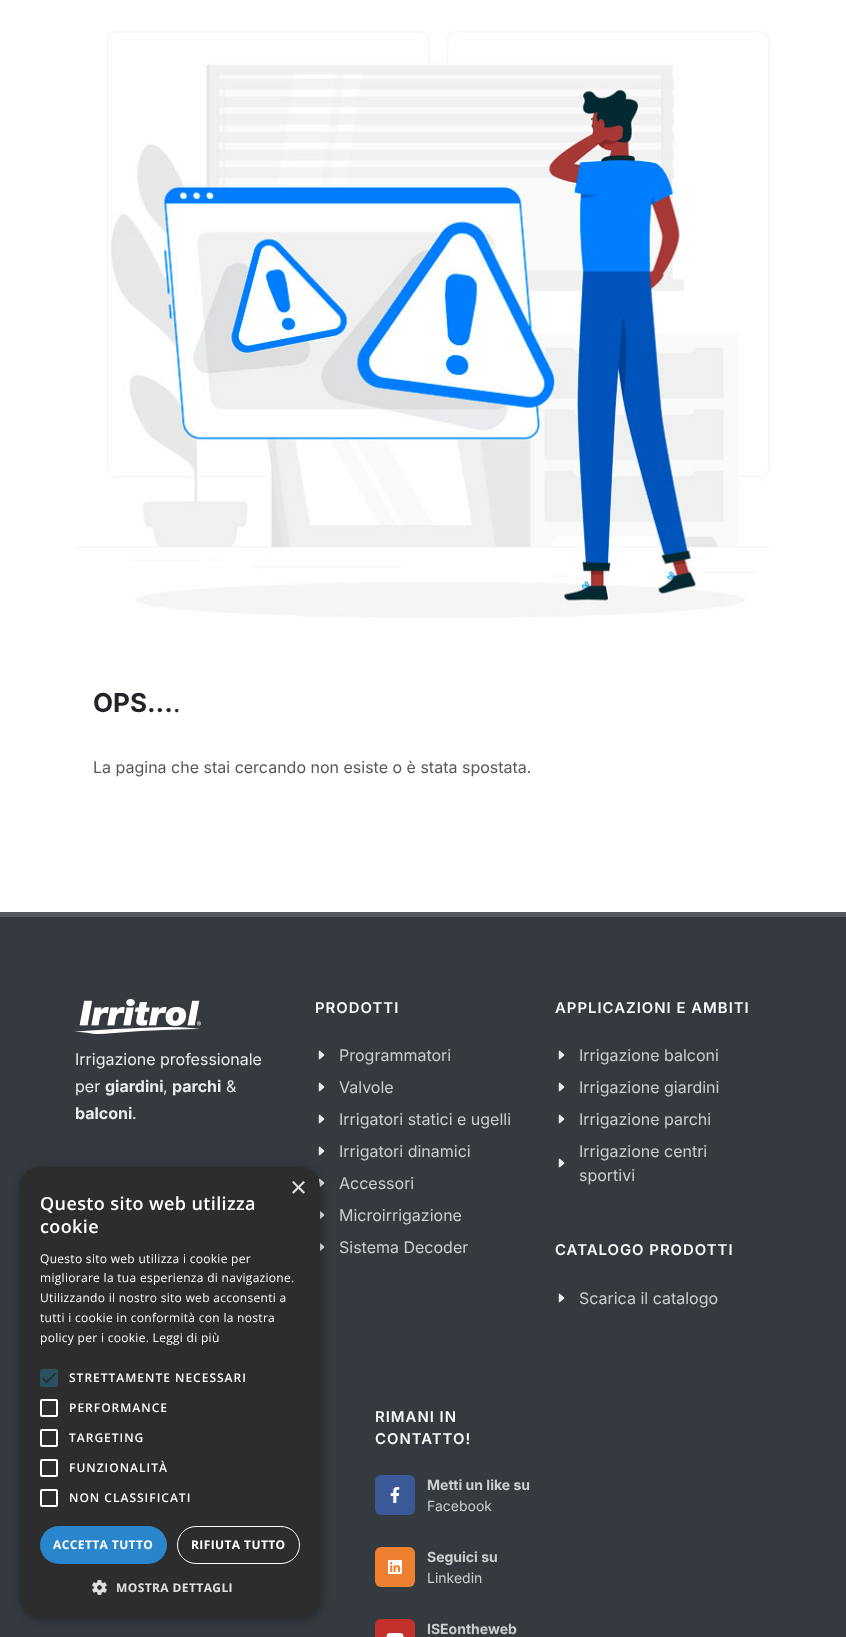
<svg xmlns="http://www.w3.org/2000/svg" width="846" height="1637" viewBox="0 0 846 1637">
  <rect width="100%" height="100%" fill="rgb(255,255,255)"/>
  <image x="75" y="31" width="696" height="587" href="pic1.png"/>
  <text x="93" y="712" font-family="Inter" font-size="26" font-weight="bold" fill="rgb(33,37,41)">OPS...</text>
  <text x="173" y="712" font-family="Inter" font-size="26" fill="rgb(33,37,41)">.</text>
  <text x="93" y="773" font-family="Inter" font-size="16" fill="rgb(88,88,88)">La pagina che stai cercando non esiste o è stata spostata.</text>
  <rect x="0" y="917" width="846" height="720" fill="rgb(52,58,64)"/>
  <rect x="0" y="912" width="846" height="5" fill="rgb(82,88,93)"/>
  <image x="75" y="999" width="126" height="35" href="pic2.png"/>
  <g font-family="Inter" font-size="16" fill="rgb(233,236,239)">
    <text>
      <tspan x="75" y="1065">Irrigazione professionale</tspan>
      <tspan x="75" y="1092">per</tspan>
    </text>
  </g>
  <text x="105" y="1092" font-family="Inter" font-size="16" font-weight="bold" fill="rgb(233,236,239)">giardini</text>
  <text x="163" y="1092" font-family="Inter" font-size="16" fill="rgb(233,236,239)">,</text>
  <text x="172" y="1092" font-family="Inter" font-size="16" font-weight="bold" fill="rgb(233,236,239)">parchi</text>
  <text x="226" y="1092" font-family="Inter" font-size="16" fill="rgb(233,236,239)">&amp;</text>
  <text x="75" y="1119" font-family="Inter" font-size="16" font-weight="bold" fill="rgb(233,236,239)">balconi</text>
  <text x="132" y="1119" font-family="Inter" font-size="16" fill="rgb(233,236,239)">.</text>
  <text x="315" y="1013" font-family="Inter" font-size="14.9" font-weight="600" letter-spacing="1" fill="rgb(248,249,250)">PRODOTTI</text>
  <image x="318" y="1050" width="7" height="10" href="pic3.png"/>
  <text x="339" y="1061" font-family="Inter" font-size="16" fill="rgb(204,206,207)">Programmatori</text>
  <image x="318" y="1082" width="7" height="10" href="pic3.png"/>
  <text x="339" y="1093" font-family="Inter" font-size="16" fill="rgb(204,206,207)">Valvole</text>
  <image x="318" y="1114" width="7" height="10" href="pic3.png"/>
  <text x="339" y="1125" font-family="Inter" font-size="16" fill="rgb(204,206,207)">Irrigatori statici e ugelli</text>
  <image x="318" y="1146" width="7" height="10" href="pic3.png"/>
  <text x="339" y="1157" font-family="Inter" font-size="16" fill="rgb(204,206,207)">Irrigatori dinamici</text>
  <image x="318" y="1178" width="7" height="9" href="pic4.png"/>
  <text x="339" y="1189" font-family="Inter" font-size="16" fill="rgb(204,206,207)">Accessori</text>
  <image x="320" y="1211" width="5" height="8" href="pic5.png"/>
  <text x="339" y="1221" font-family="Inter" font-size="16" fill="rgb(204,206,207)">Microirrigazione</text>
  <image x="320" y="1243" width="5" height="8" href="pic5.png"/>
  <text x="339" y="1253" font-family="Inter" font-size="16" fill="rgb(204,206,207)">Sistema Decoder</text>
  <text x="555" y="1013" font-family="Inter" font-size="14.9" font-weight="600" letter-spacing="1" fill="rgb(248,249,250)">APPLICAZIONI E AMBITI</text>
  <image x="558" y="1050" width="7" height="10" href="pic3.png"/>
  <text x="579" y="1061" font-family="Inter" font-size="16" fill="rgb(204,206,207)">Irrigazione balconi</text>
  <image x="558" y="1082" width="7" height="10" href="pic3.png"/>
  <text x="579" y="1093" font-family="Inter" font-size="16" fill="rgb(204,206,207)">Irrigazione giardini</text>
  <image x="558" y="1114" width="7" height="10" href="pic3.png"/>
  <text x="579" y="1125" font-family="Inter" font-size="16" fill="rgb(204,206,207)">Irrigazione parchi</text>
  <image x="558" y="1158" width="7" height="10" href="pic3.png"/>
  <g font-family="Inter" font-size="16" fill="rgb(204,206,207)">
    <text>
      <tspan x="579" y="1157">Irrigazione centri</tspan>
      <tspan x="579" y="1181">sportivi</tspan>
    </text>
  </g>
  <text x="555" y="1255" font-family="Inter" font-size="14.9" font-weight="600" letter-spacing="1" fill="rgb(248,249,250)">CATALOGO PRODOTTI</text>
  <image x="558" y="1293" width="7" height="10" href="pic3.png"/>
  <text x="579" y="1304" font-family="Inter" font-size="16" fill="rgb(204,206,207)">Scarica il catalogo</text>
  <g font-family="Inter" font-size="14.9" font-weight="600" letter-spacing="1" fill="rgb(248,249,250)">
    <text>
      <tspan x="375" y="1422">RIMANI IN</tspan>
      <tspan x="375" y="1444">CONTATTO!</tspan>
    </text>
  </g>
  <rect x="375" y="1475" width="40" height="40" rx="6" fill="rgb(59,89,152)"/>
  <image x="390" y="1487" width="10" height="16" href="pic6.png"/>
  <text x="427" y="1490" font-family="Inter" font-size="14" font-weight="bold" fill="rgb(204,206,207)">Metti un like su</text>
  <text x="427" y="1511" font-family="Inter" font-size="14" fill="rgb(204,206,207)">Facebook</text>
  <rect x="375" y="1547" width="40" height="40" rx="6" fill="rgb(238,128,47)"/>
  <image x="388" y="1560" width="14" height="14" href="pic7.png"/>
  <text x="427" y="1562" font-family="Inter" font-size="14" font-weight="bold" fill="rgb(204,206,207)">Seguici su</text>
  <text x="427" y="1583" font-family="Inter" font-size="14" fill="rgb(204,206,207)">Linkedin</text>
  <rect x="375" y="1619" width="40" height="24" rx="6" fill="rgb(196,48,43)"/>
  <image x="386" y="1633" width="18" height="4" href="pic8.png"/>
  <text x="427" y="1634" font-family="Inter" font-size="14" font-weight="bold" fill="rgb(204,206,207)">ISEontheweb</text>
  <rect x="21" y="1169" width="300" height="450" rx="20" fill="rgba(0,0,0,0.35)" filter="blur(4px)"/>
  <rect x="20" y="1167" width="300" height="450" rx="20" fill="rgb(45,45,45)"/>
  <text x="290" y="1197" font-family="Liberation Sans" font-size="29" fill="rgb(224,224,224)">×</text>
  <g font-family="Open Sans" font-size="18" font-weight="600" letter-spacing="0.4" fill="rgb(255,255,255)">
    <text>
      <tspan x="40" y="1210">Questo sito web utilizza</tspan>
      <tspan x="40" y="1233">cookie</tspan>
    </text>
  </g>
  <g font-family="Open Sans" font-size="12" letter-spacing="0.3" fill="rgb(255,255,255)">
    <text>
      <tspan x="40" y="1263">Questo sito web utilizza i cookie per</tspan>
      <tspan x="40" y="1282">migliorare la tua esperienza di navigazione.</tspan>
      <tspan x="40" y="1302">Utilizzando il nostro sito web acconsenti a</tspan>
      <tspan x="40" y="1322">tutti i cookie in conformità con la nostra</tspan>
      <tspan x="40" y="1342">policy per i cookie. Leggi di più</tspan>
    </text>
  </g>
  <rect x="40" y="1369" width="18" height="18" rx="2" fill="rgb(42,81,96)"/>
  <path d="M43 1378.5L46.5 1382L55.5 1373.5" fill="none" stroke="rgb(45,45,45)" stroke-width="1.8"/>
  <text x="69" y="1382" font-family="Open Sans" font-size="12" font-weight="600" letter-spacing="1" fill="rgb(255,255,255)">STRETTAMENTE NECESSARI</text>
  <rect x="41" y="1400" width="16" height="16" rx="1" fill="none" stroke="rgb(255,255,255)" stroke-width="2"/>
  <text x="69" y="1412" font-family="Open Sans" font-size="12" font-weight="600" letter-spacing="1" fill="rgb(255,255,255)">PERFORMANCE</text>
  <rect x="41" y="1430" width="16" height="16" rx="1" fill="none" stroke="rgb(255,255,255)" stroke-width="2"/>
  <text x="69" y="1442" font-family="Open Sans" font-size="12" font-weight="600" letter-spacing="1" fill="rgb(255,255,255)">TARGETING</text>
  <rect x="41" y="1460" width="16" height="16" rx="1" fill="none" stroke="rgb(255,255,255)" stroke-width="2"/>
  <text x="69" y="1472" font-family="Open Sans" font-size="12" font-weight="600" letter-spacing="1" fill="rgb(255,255,255)">FUNZIONALITÀ</text>
  <rect x="41" y="1490" width="16" height="16" rx="1" fill="none" stroke="rgb(255,255,255)" stroke-width="2"/>
  <text x="69" y="1502" font-family="Open Sans" font-size="12" font-weight="600" letter-spacing="1" fill="rgb(255,255,255)">NON CLASSIFICATI</text>
  <rect x="40" y="1526" width="127" height="38" rx="19" fill="rgb(41,134,204)"/>
  <text x="53" y="1549" font-family="Open Sans" font-size="12" font-weight="bold" letter-spacing="0.4" fill="rgb(255,255,255)">ACCETTA TUTTO</text>
  <rect x="177.5" y="1526.5" width="122" height="37" rx="18.5" fill="none" stroke="rgb(255,255,255)"/>
  <text x="191" y="1549" font-family="Open Sans" font-size="12" font-weight="bold" letter-spacing="0.4" fill="rgb(255,255,255)">RIFIUTA TUTTO</text>
  <image x="92" y="1580" width="15" height="15" href="pic9.png"/>
  <text x="116" y="1592" font-family="Open Sans" font-size="12" font-weight="bold" letter-spacing="0.4" fill="rgb(224,224,224)">MOSTRA DETTAGLI</text>
</svg>
